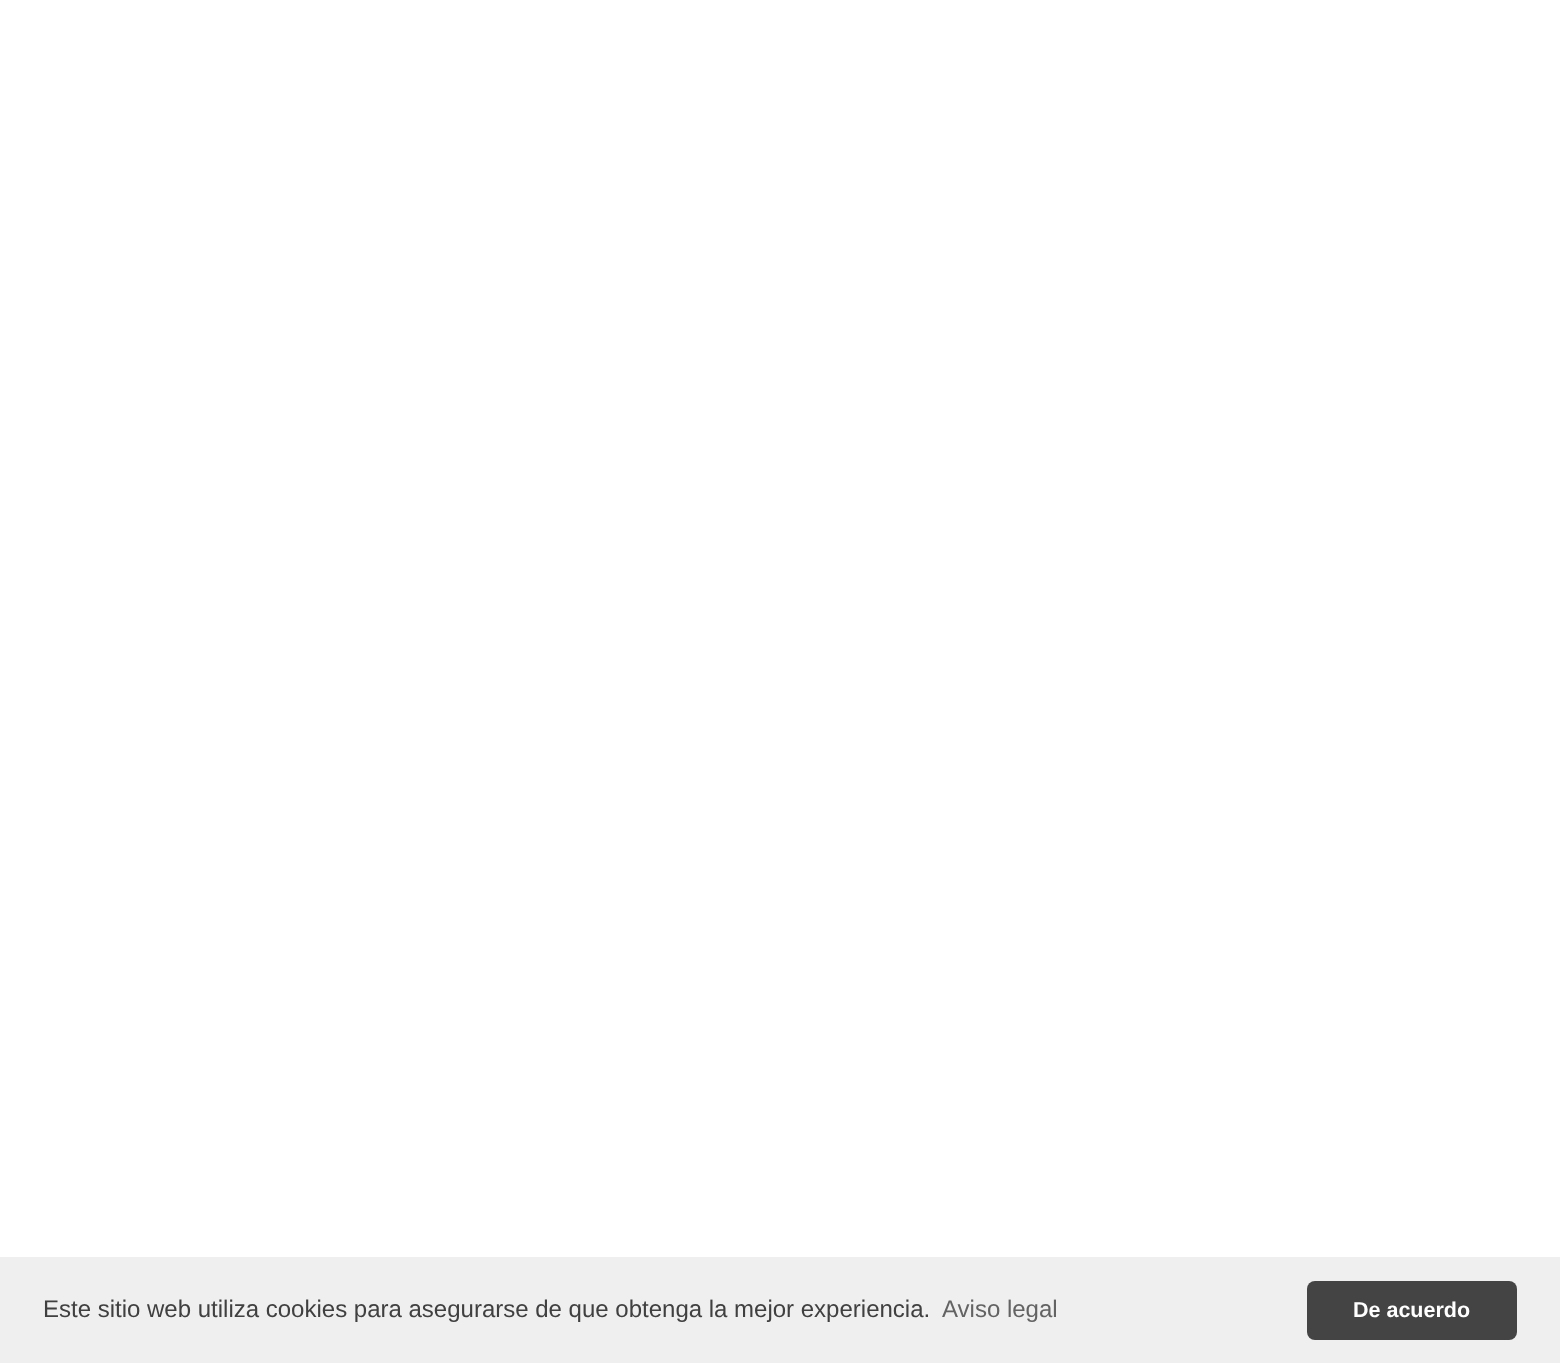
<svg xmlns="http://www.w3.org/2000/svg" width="1560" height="1363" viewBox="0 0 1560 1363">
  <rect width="100%" height="100%" fill="rgb(255,255,255)"/>
  <rect x="0" y="1257" width="1560" height="106" fill="rgb(239,239,239)"/>
  <text x="43" y="1317" font-family="Liberation Sans" font-size="24" fill="rgb(64,64,64)">Este sitio web utiliza cookies para asegurarse de que obtenga la mejor experiencia.</text>
  <text x="942" y="1317" font-family="Liberation Sans" font-size="24" fill="rgb(99,99,99)">Aviso legal</text>
  <rect x="1307" y="1281" width="210" height="59" rx="8" fill="rgb(68,68,68)"/>
  <text x="1353" y="1317" font-family="Liberation Sans" font-size="21.5" font-weight="bold" fill="rgb(255,255,255)">De acuerdo</text>
</svg>
